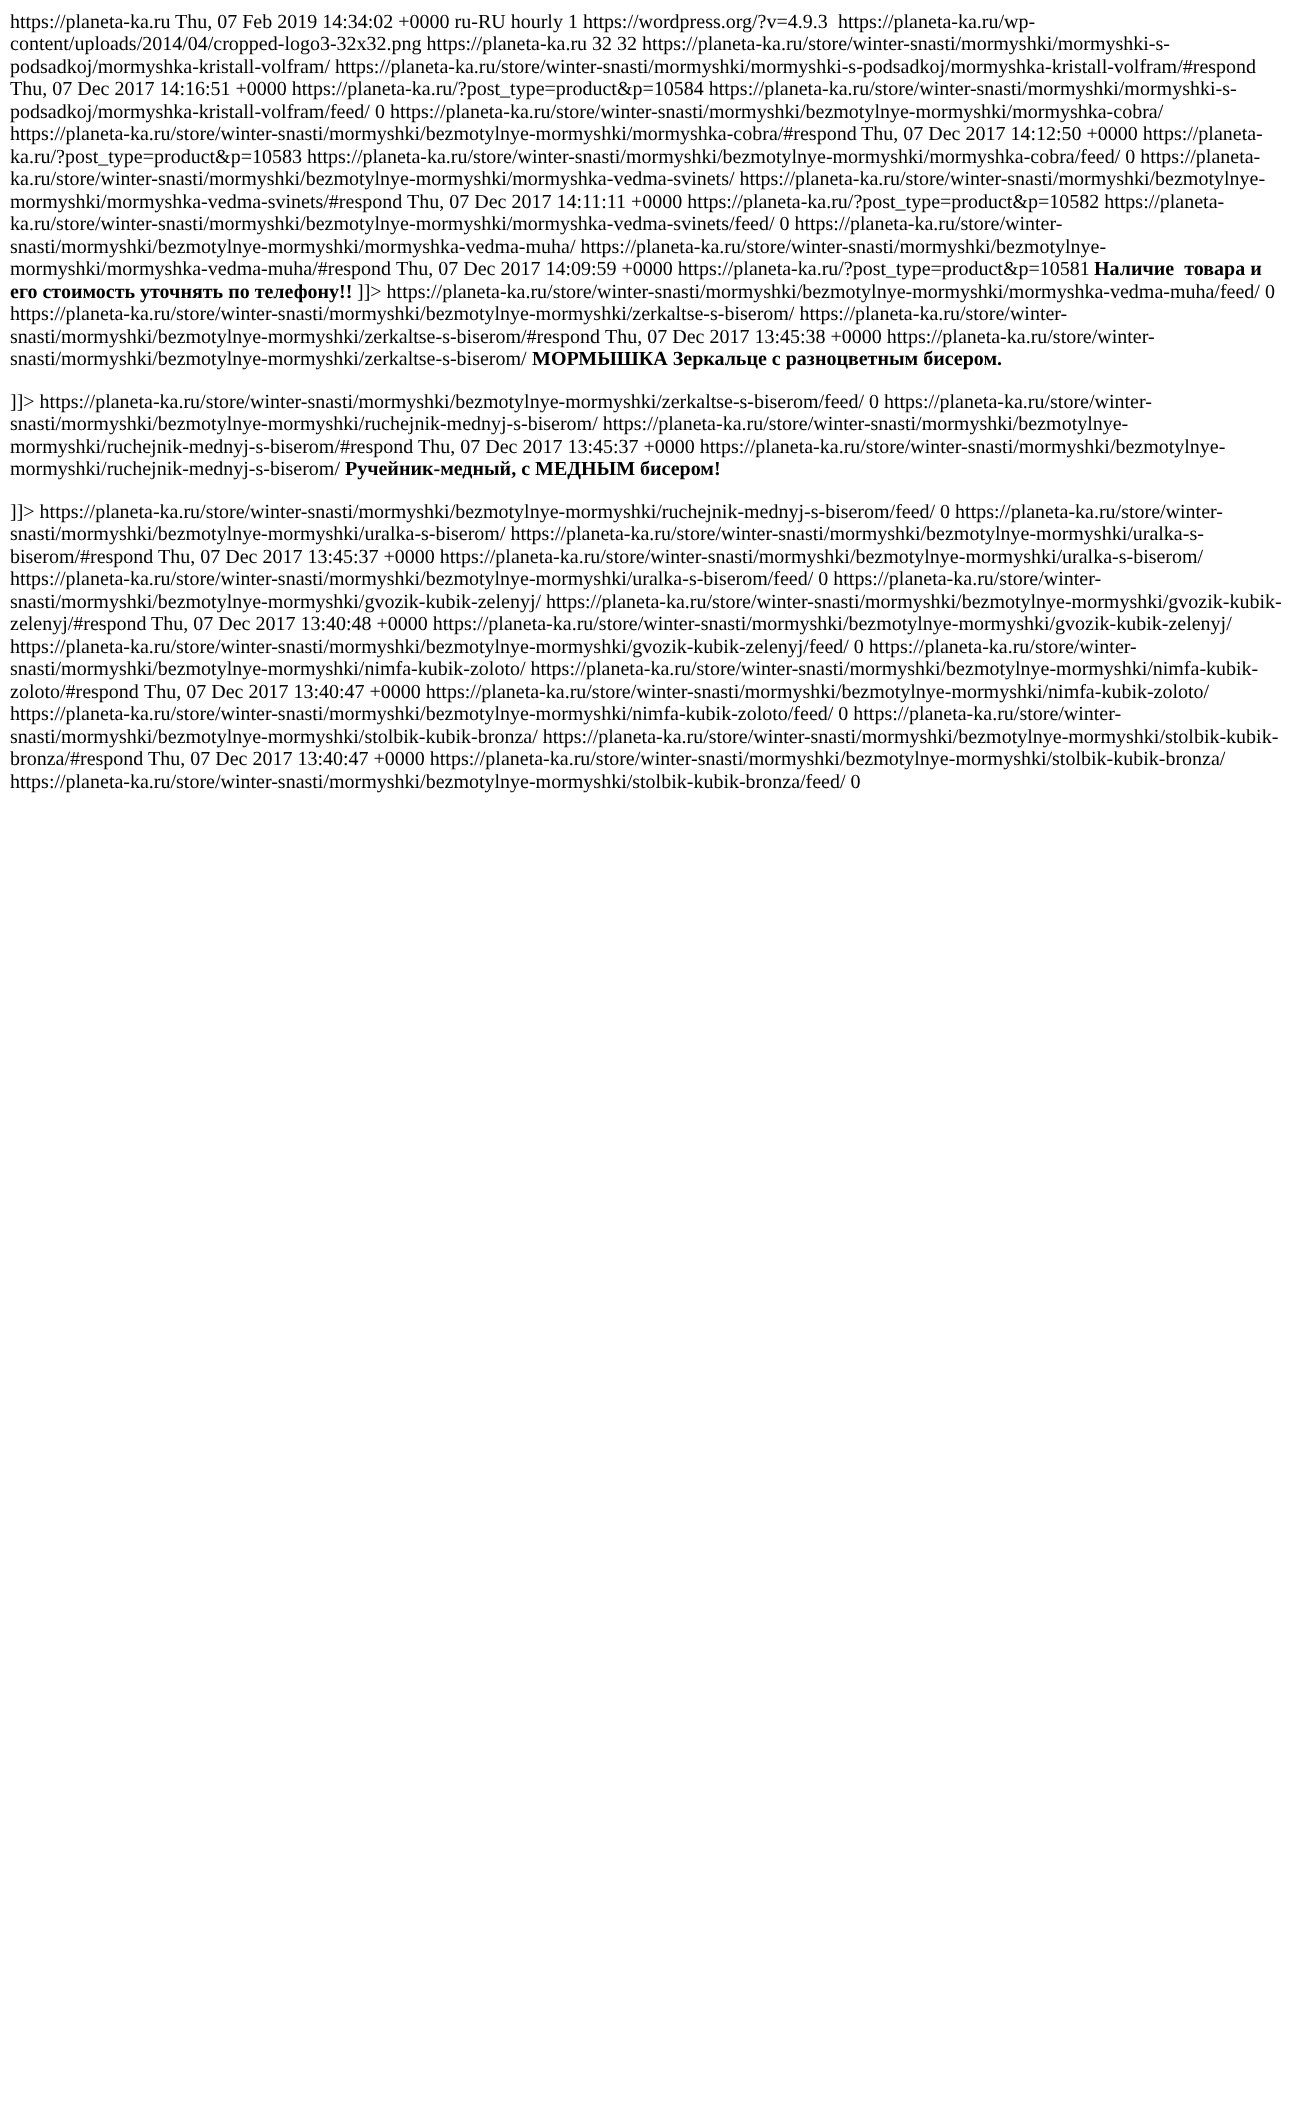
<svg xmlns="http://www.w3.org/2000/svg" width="1296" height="2115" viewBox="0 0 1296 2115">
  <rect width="100%" height="100%" fill="rgb(255,255,255)"/>
  <g font-family="Liberation Serif" font-size="20" fill="rgb(0,0,0)">
    <text x="10" y="28">https://planeta-ka.ru</text>
    <text x="175" y="28">Thu, 07 Feb 2019 14:34:02 +0000 ru-RU hourly 1 https://wordpress.org/?v=4.9.3</text>
    <text x="838" y="28">https://planeta-ka.ru/wp-</text>
    <text>
      <tspan x="10" y="50">content/uploads/2014/04/cropped-logo3-32x32.png https://planeta-ka.ru 32 32 https://planeta-ka.ru/store/winter-snasti/mormyshki/mormyshki-s-</tspan>
      <tspan x="10" y="73">podsadkoj/mormyshka-kristall-volfram/ https://planeta-ka.ru/store/winter-snasti/mormyshki/mormyshki-s-podsadkoj/mormyshka-kristall-volfram/#respond</tspan>
      <tspan x="10" y="95">Thu, 07 Dec 2017 14:16:51 +0000 https://planeta-ka.ru/?post_type=product&amp;p=10584 https://planeta-ka.ru/store/winter-snasti/mormyshki/mormyshki-s-</tspan>
      <tspan x="10" y="118">podsadkoj/mormyshka-kristall-volfram/feed/ 0 https://planeta-ka.ru/store/winter-snasti/mormyshki/bezmotylnye-mormyshki/mormyshka-cobra/</tspan>
      <tspan x="10" y="140">https://planeta-ka.ru/store/winter-snasti/mormyshki/bezmotylnye-mormyshki/mormyshka-cobra/#respond</tspan>
    </text>
    <text x="861" y="140">Thu, 07 Dec 2017 14:12:50 +0000 https://planeta-</text>
    <text>
      <tspan x="10" y="163">ka.ru/?post_type=product&amp;p=10583 https://planeta-ka.ru/store/winter-snasti/mormyshki/bezmotylnye-mormyshki/mormyshka-cobra/feed/ 0 https://planeta-</tspan>
      <tspan x="10" y="185">ka.ru/store/winter-snasti/mormyshki/bezmotylnye-mormyshki/mormyshka-vedma-svinets/ https://planeta-ka.ru/store/winter-snasti/mormyshki/bezmotylnye-</tspan>
      <tspan x="10" y="208">mormyshki/mormyshka-vedma-svinets/#respond</tspan>
    </text>
    <text x="407" y="208">Thu, 07 Dec 2017 14:11:11 +0000 https://planeta-ka.ru/?post_type=product&amp;p=10582 https://planeta-</text>
    <text>
      <tspan x="10" y="230">ka.ru/store/winter-snasti/mormyshki/bezmotylnye-mormyshki/mormyshka-vedma-svinets/feed/ 0 https://planeta-ka.ru/store/winter-</tspan>
      <tspan x="10" y="253">snasti/mormyshki/bezmotylnye-mormyshki/mormyshka-vedma-muha/ https://planeta-ka.ru/store/winter-snasti/mormyshki/bezmotylnye-</tspan>
      <tspan x="10" y="275">mormyshki/mormyshka-vedma-muha/#respond</tspan>
    </text>
    <text x="396" y="275">Thu, 07 Dec 2017 14:09:59 +0000 https://planeta-ka.ru/?post_type=product&amp;p=10581</text>
  </g>
  <g font-family="Liberation Serif" font-size="20" font-weight="bold" fill="rgb(0,0,0)">
    <text x="1094" y="275" xml:space="preserve">Наличие  товара и</text>
    <text x="10" y="298">его стоимость уточнять по телефону!!</text>
  </g>
  <g font-family="Liberation Serif" font-size="20" fill="rgb(0,0,0)">
    <text x="357" y="298">]]&gt; https://planeta-ka.ru/store/winter-snasti/mormyshki/bezmotylnye-mormyshki/mormyshka-vedma-muha/feed/ 0</text>
    <text>
      <tspan x="10" y="320">https://planeta-ka.ru/store/winter-snasti/mormyshki/bezmotylnye-mormyshki/zerkaltse-s-biserom/ https://planeta-ka.ru/store/winter-</tspan>
      <tspan x="10" y="343">snasti/mormyshki/bezmotylnye-mormyshki/zerkaltse-s-biserom/#respond</tspan>
    </text>
    <text x="605" y="343">Thu, 07 Dec 2017 13:45:38 +0000 https://planeta-ka.ru/store/winter-</text>
    <text x="10" y="365">snasti/mormyshki/bezmotylnye-mormyshki/zerkaltse-s-biserom/</text>
  </g>
  <text x="532" y="365" font-family="Liberation Serif" font-size="20" font-weight="bold" fill="rgb(0,0,0)">МОРМЫШКА Зеркальце с разноцветным бисером.</text>
  <g font-family="Liberation Serif" font-size="20" fill="rgb(0,0,0)">
    <text>
      <tspan x="10" y="408">]]&gt; https://planeta-ka.ru/store/winter-snasti/mormyshki/bezmotylnye-mormyshki/zerkaltse-s-biserom/feed/ 0 https://planeta-ka.ru/store/winter-</tspan>
      <tspan x="10" y="430">snasti/mormyshki/bezmotylnye-mormyshki/ruchejnik-mednyj-s-biserom/ https://planeta-ka.ru/store/winter-snasti/mormyshki/bezmotylnye-</tspan>
      <tspan x="10" y="453">mormyshki/ruchejnik-mednyj-s-biserom/#respond</tspan>
    </text>
    <text x="418" y="453">Thu, 07 Dec 2017 13:45:37 +0000 https://planeta-ka.ru/store/winter-snasti/mormyshki/bezmotylnye-</text>
    <text x="10" y="475">mormyshki/ruchejnik-mednyj-s-biserom/</text>
  </g>
  <text x="345" y="475" font-family="Liberation Serif" font-size="20" font-weight="bold" fill="rgb(0,0,0)">Ручейник-медный, с МЕДНЫМ бисером!</text>
  <g font-family="Liberation Serif" font-size="20" fill="rgb(0,0,0)">
    <text>
      <tspan x="10" y="518">]]&gt; https://planeta-ka.ru/store/winter-snasti/mormyshki/bezmotylnye-mormyshki/ruchejnik-mednyj-s-biserom/feed/ 0 https://planeta-ka.ru/store/winter-</tspan>
      <tspan x="10" y="540">snasti/mormyshki/bezmotylnye-mormyshki/uralka-s-biserom/ https://planeta-ka.ru/store/winter-snasti/mormyshki/bezmotylnye-mormyshki/uralka-s-</tspan>
      <tspan x="10" y="563">biserom/#respond</tspan>
    </text>
    <text x="158" y="563">Thu, 07 Dec 2017 13:45:37 +0000 https://planeta-ka.ru/store/winter-snasti/mormyshki/bezmotylnye-mormyshki/uralka-s-biserom/</text>
    <text>
      <tspan x="10" y="585">https://planeta-ka.ru/store/winter-snasti/mormyshki/bezmotylnye-mormyshki/uralka-s-biserom/feed/ 0 https://planeta-ka.ru/store/winter-</tspan>
      <tspan x="10" y="608">snasti/mormyshki/bezmotylnye-mormyshki/gvozik-kubik-zelenyj/ https://planeta-ka.ru/store/winter-snasti/mormyshki/bezmotylnye-mormyshki/gvozik-kubik-</tspan>
      <tspan x="10" y="630">zelenyj/#respond</tspan>
    </text>
    <text x="151" y="630">Thu, 07 Dec 2017 13:40:48 +0000 https://planeta-ka.ru/store/winter-snasti/mormyshki/bezmotylnye-mormyshki/gvozik-kubik-zelenyj/</text>
    <text>
      <tspan x="10" y="653">https://planeta-ka.ru/store/winter-snasti/mormyshki/bezmotylnye-mormyshki/gvozik-kubik-zelenyj/feed/ 0 https://planeta-ka.ru/store/winter-</tspan>
      <tspan x="10" y="675">snasti/mormyshki/bezmotylnye-mormyshki/nimfa-kubik-zoloto/ https://planeta-ka.ru/store/winter-snasti/mormyshki/bezmotylnye-mormyshki/nimfa-kubik-</tspan>
      <tspan x="10" y="698">zoloto/#respond</tspan>
    </text>
    <text x="144" y="698">Thu, 07 Dec 2017 13:40:47 +0000 https://planeta-ka.ru/store/winter-snasti/mormyshki/bezmotylnye-mormyshki/nimfa-kubik-zoloto/</text>
    <text>
      <tspan x="10" y="720">https://planeta-ka.ru/store/winter-snasti/mormyshki/bezmotylnye-mormyshki/nimfa-kubik-zoloto/feed/ 0 https://planeta-ka.ru/store/winter-</tspan>
      <tspan x="10" y="743">snasti/mormyshki/bezmotylnye-mormyshki/stolbik-kubik-bronza/ https://planeta-ka.ru/store/winter-snasti/mormyshki/bezmotylnye-mormyshki/stolbik-kubik-</tspan>
      <tspan x="10" y="765">bronza/#respond</tspan>
    </text>
    <text x="148" y="765">Thu, 07 Dec 2017 13:40:47 +0000 https://planeta-ka.ru/store/winter-snasti/mormyshki/bezmotylnye-mormyshki/stolbik-kubik-bronza/</text>
    <text x="10" y="788">https://planeta-ka.ru/store/winter-snasti/mormyshki/bezmotylnye-mormyshki/stolbik-kubik-bronza/feed/ 0</text>
  </g>
</svg>
